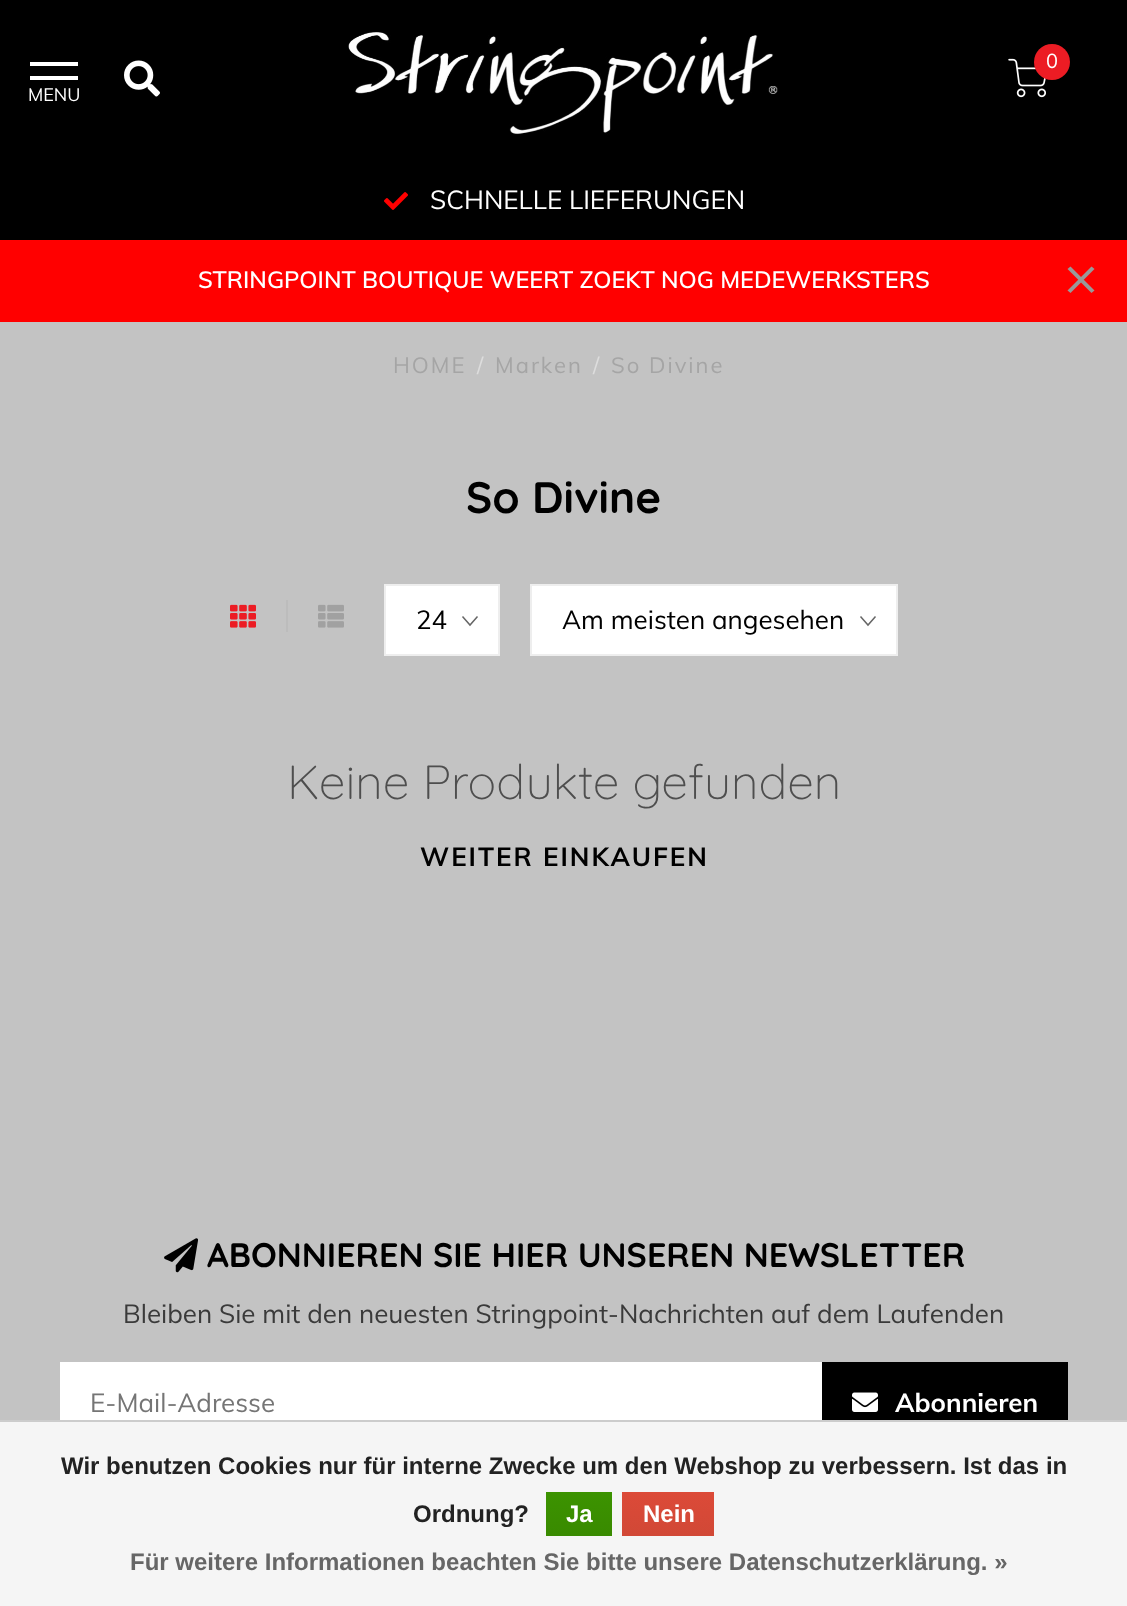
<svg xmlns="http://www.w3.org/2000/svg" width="1127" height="1606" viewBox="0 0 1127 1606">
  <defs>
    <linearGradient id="g1" gradientUnits="userSpaceOnUse" x1="579" y1="1492" x2="579" y2="1536"><stop offset="0" stop-color="rgb(60,147,0)"/><stop offset="1" stop-color="rgb(57,138,0)"/></linearGradient>
    <linearGradient id="g2" gradientUnits="userSpaceOnUse" x1="668" y1="1492" x2="668" y2="1536"><stop offset="0" stop-color="rgb(220,74,56)"/><stop offset="1" stop-color="rgb(209,72,54)"/></linearGradient>
  </defs>
  <rect width="100%" height="100%" fill="rgb(195,195,195)"/>
  <rect x="0" y="0" width="1127" height="240" fill="rgb(0,0,0)"/>
  <image x="348" y="32" width="430" height="103" href="pic1.png"/>
  <image x="1008" y="58" width="38" height="40" href="pic2.png"/>
  <circle cx="1052" cy="62" r="18" fill="rgb(236,28,36)"/>
  <text x="1046" y="68" font-family="Muli" font-size="20" fill="rgb(255,255,255)">0</text>
  <rect x="30" y="62" width="48" height="4" fill="rgb(255,255,255)"/>
  <rect x="30" y="76" width="48" height="4" fill="rgb(255,255,255)"/>
  <text x="28" y="101" font-family="Muli" font-size="18" fill="rgb(255,255,255)">MENU</text>
  <image x="124" y="60" width="36" height="37" href="pic3.png"/>
  <image x="384" y="192" width="24" height="18" href="pic4.png"/>
  <text x="430" y="209" font-family="Muli" font-size="26" fill="rgb(255,255,255)">SCHNELLE LIEFERUNGEN</text>
  <rect x="0" y="240" width="1127" height="82" fill="rgb(255,0,0)"/>
  <text x="198" y="288" font-family="Muli" font-size="23.4" font-weight="600" fill="rgb(255,255,255)">STRINGPOINT BOUTIQUE WEERT ZOEKT NOG MEDEWERKSTERS</text>
  <path d="M1070.5 266.5L1094.5 290.5L1091.5 293L1067.5 269Z" fill="rgb(153,153,153)"/>
  <path d="M1067.5 290.5L1091.5 266.5L1094.5 269L1070.5 293Z" fill="rgb(153,153,153)"/>
  <text x="393" y="373" font-family="Muli" font-size="22" letter-spacing="2" fill="rgb(165,165,165)">HOME</text>
  <text x="477" y="373" font-family="Muli" font-size="22" letter-spacing="2" fill="rgb(221,221,221)">/</text>
  <text x="495" y="373" font-family="Muli" font-size="22" letter-spacing="2" fill="rgb(165,165,165)">Marken</text>
  <text x="593" y="373" font-family="Muli" font-size="22" letter-spacing="2" fill="rgb(221,221,221)">/</text>
  <text x="611" y="373" font-family="Muli" font-size="22" letter-spacing="2" fill="rgb(165,165,165)">So Divine</text>
  <text x="466" y="513" font-family="Quicksand" font-size="44" font-weight="bold" fill="rgb(0,0,0)">So Divine</text>
  <rect x="286" y="600" width="2" height="32" fill="rgb(188,188,188)"/>
  <image x="230" y="604" width="26" height="24" href="pic5.png"/>
  <image x="318" y="604" width="26" height="24" href="pic6.png"/>
  <rect x="386" y="586" width="112" height="68" fill="rgb(255,255,255)"/>
  <path d="M477.5 616.5L470 625L462.5 616.5" fill="none" stroke="rgb(102,102,102)" stroke-width="1.5"/>
  <rect x="385" y="585" width="114" height="70" fill="none" stroke="rgb(238,238,238)" stroke-width="2"/>
  <text x="416" y="629" font-family="Muli" font-size="26" fill="rgb(0,0,0)">24</text>
  <rect x="532" y="586" width="364" height="68" fill="rgb(255,255,255)"/>
  <path d="M875.5 616.5L868 625L860.5 616.5" fill="none" stroke="rgb(102,102,102)" stroke-width="1.5"/>
  <rect x="531" y="585" width="366" height="70" fill="none" stroke="rgb(238,238,238)" stroke-width="2"/>
  <text x="562" y="629" font-family="Muli" font-size="26" fill="rgb(0,0,0)">Am meisten angesehen</text>
  <text x="287" y="799" font-family="Quicksand" font-size="48" font-weight="300" fill="rgb(78,78,78)">Keine Produkte gefunden</text>
  <text x="420" y="866" font-family="Muli" font-size="26" font-weight="bold" letter-spacing="2" fill="rgb(0,0,0)">WEITER EINKAUFEN</text>
  <image x="164" y="1238" width="34" height="35" href="pic7.png"/>
  <text x="207" y="1267" font-family="Quicksand" font-size="34" font-weight="bold" fill="rgb(0,0,0)">ABONNIEREN SIE HIER UNSEREN NEWSLETTER</text>
  <text x="123" y="1323" font-family="Muli" font-size="26" fill="rgb(58,58,58)">Bleiben Sie mit den neuesten Stringpoint-Nachrichten auf dem Laufenden</text>
  <rect x="60" y="1362" width="762" height="58" fill="rgb(255,255,255)"/>
  <text x="90" y="1412" font-family="Muli" font-size="26" fill="rgb(117,117,117)">E-Mail-Adresse</text>
  <rect x="822" y="1362" width="246" height="58" fill="rgb(0,0,0)"/>
  <image x="852" y="1392" width="26" height="20" href="pic8.png"/>
  <text x="895" y="1412" font-family="Muli" font-size="26" font-weight="bold" fill="rgb(255,255,255)">Abonnieren</text>
  <rect x="0" y="1422" width="1127" height="184" fill="rgb(245,245,245)"/>
  <rect x="0" y="1420" width="1127" height="2" fill="rgb(204,204,204)"/>
  <g font-family="Liberation Sans" font-size="24" font-weight="bold" fill="rgb(34,34,34)">
    <text x="61" y="1474">Wir benutzen Cookies nur für interne Zwecke um den Webshop zu verbessern. Ist das in</text>
    <text x="413" y="1522">Ordnung?</text>
  </g>
  <rect x="546" y="1492" width="66" height="44" fill="url(#g1)"/>
  <text x="566" y="1522" font-family="Liberation Sans" font-size="24" font-weight="bold" fill="rgb(255,255,255)">Ja</text>
  <rect x="622" y="1492" width="92" height="44" fill="url(#g2)"/>
  <text x="643" y="1522" font-family="Liberation Sans" font-size="24" font-weight="bold" fill="rgb(255,255,255)">Nein</text>
  <text x="130" y="1570" font-family="Liberation Sans" font-size="24" font-weight="bold" fill="rgb(102,102,102)">Für weitere Informationen beachten Sie bitte unsere Datenschutzerklärung. »</text>
</svg>
